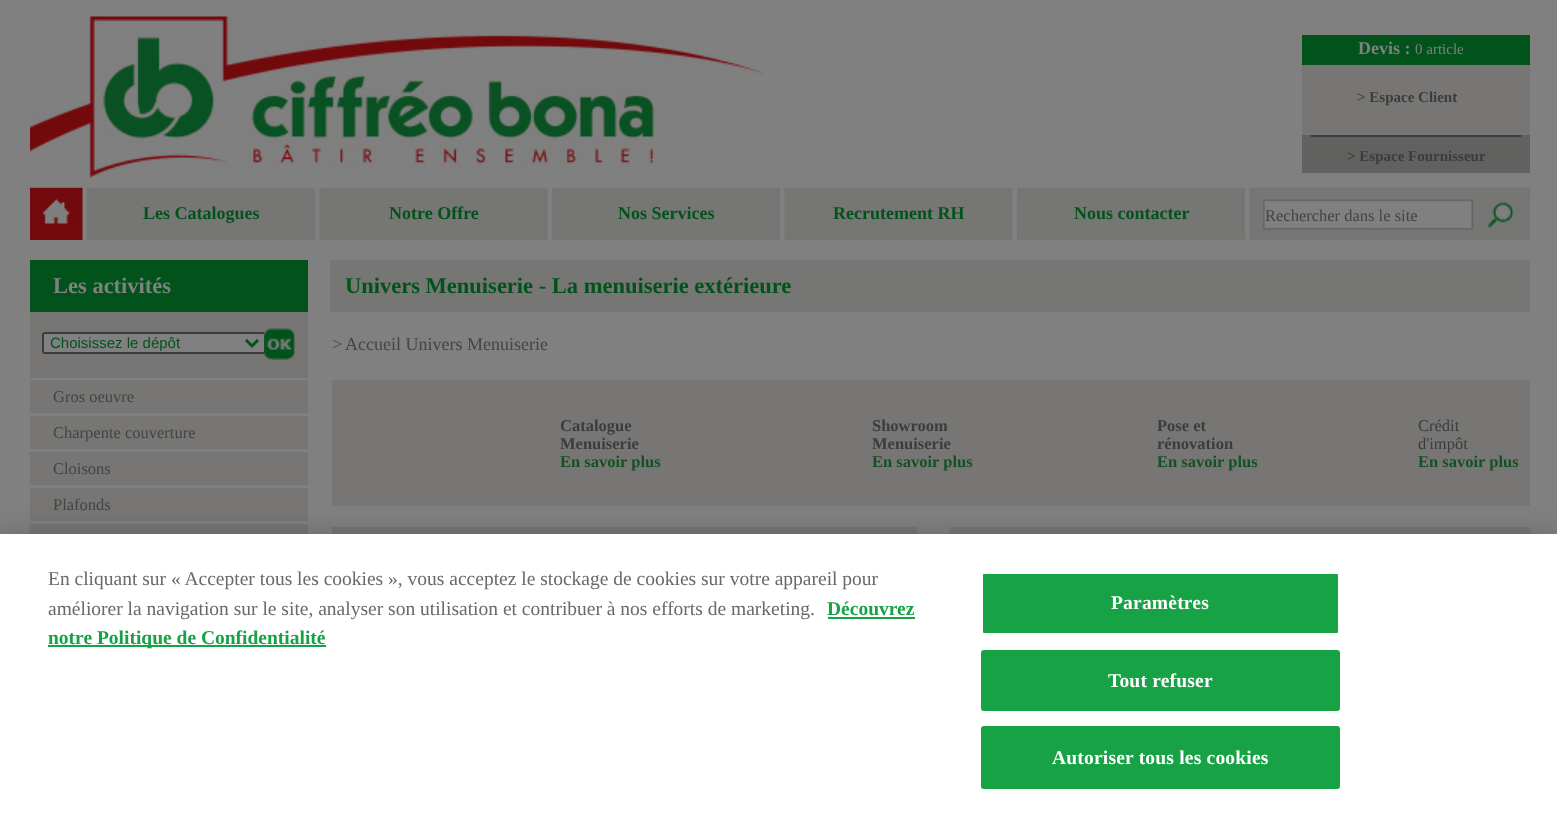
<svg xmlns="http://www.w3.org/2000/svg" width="1557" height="818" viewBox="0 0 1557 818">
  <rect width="100%" height="100%" fill="rgb(128,128,128)"/>
  <image x="30" y="16" width="734" height="162" href="pic1.png"/>
  <rect x="1302" y="35" width="228" height="30" fill="rgb(2,83,27)"/>
  <text x="1358" y="54" font-family="Liberation Serif" font-size="18" font-weight="bold" fill="rgb(128,128,128)">Devis :</text>
  <text x="1415" y="54" font-family="Liberation Serif" font-size="15" fill="rgb(128,128,128)">0 article</text>
  <rect x="1302" y="65" width="228" height="70" fill="rgb(119,118,116)"/>
  <text x="1357" y="102" font-family="Liberation Serif" font-size="15" font-weight="bold" fill="rgb(60,60,60)">&gt; Espace Client</text>
  <rect x="1302" y="135" width="228" height="38" fill="rgb(97,97,96)"/>
  <rect x="1311" y="135" width="210" height="2" fill="rgb(60,60,60)"/>
  <text x="1347" y="161" font-family="Liberation Serif" font-size="15" font-weight="bold" fill="rgb(60,60,60)">&gt; Espace Fournisseur</text>
  <image x="30" y="187" width="53" height="53" href="pic2.png"/>
  <image x="87" y="187" width="228" height="53" href="pic3.png"/>
  <text x="143" y="219" font-family="Liberation Serif" font-size="18" font-weight="bold" fill="rgb(2,83,27)">Les Catalogues</text>
  <image x="319" y="187" width="229" height="53" href="pic4.png"/>
  <text x="389" y="219" font-family="Liberation Serif" font-size="18" font-weight="bold" fill="rgb(2,83,27)">Notre Offre</text>
  <image x="552" y="187" width="228" height="53" href="pic3.png"/>
  <text x="618" y="219" font-family="Liberation Serif" font-size="18" font-weight="bold" fill="rgb(2,83,27)">Nos Services</text>
  <image x="784" y="187" width="229" height="53" href="pic4.png"/>
  <text x="833" y="219" font-family="Liberation Serif" font-size="18" font-weight="bold" fill="rgb(2,83,27)">Recrutement RH</text>
  <image x="1017" y="187" width="228" height="53" href="pic3.png"/>
  <text x="1074" y="219" font-family="Liberation Serif" font-size="18" font-weight="bold" fill="rgb(2,83,27)">Nous contacter</text>
  <image x="1249" y="187" width="281" height="53" href="pic5.png"/>
  <text x="1265" y="221" font-family="Liberation Serif" font-size="16.5" fill="rgb(67,68,68)">Rechercher dans le site</text>
  <rect x="30" y="260" width="278" height="52" fill="rgb(2,83,27)"/>
  <text x="53" y="293" font-family="Liberation Serif" font-size="22.5" font-weight="bold" fill="rgb(128,128,128)">Les activités</text>
  <rect x="30" y="312" width="278" height="66" fill="rgb(119,118,116)"/>
  <rect x="43" y="333" width="222" height="20" rx="2" fill="rgb(128,128,128)" stroke="rgb(59,59,59)" stroke-width="2"/>
  <path d="M246 340L252 346L258 340" fill="none" stroke="rgb(2,83,27)" stroke-width="3"/>
  <text x="50" y="348" font-family="Liberation Sans" font-size="15" fill="rgb(2,83,27)">Choisissez le dépôt</text>
  <image x="264" y="328" width="32" height="32" href="pic6.png"/>
  <rect x="30" y="380" width="278" height="33" fill="rgb(119,118,116)"/>
  <text x="53" y="402" font-family="Liberation Serif" font-size="16.5" fill="rgb(67,68,68)">Gros oeuvre</text>
  <rect x="30" y="416" width="278" height="33" fill="rgb(119,118,116)"/>
  <text x="53" y="438" font-family="Liberation Serif" font-size="16.5" fill="rgb(67,68,68)">Charpente couverture</text>
  <rect x="30" y="452" width="278" height="33" fill="rgb(119,118,116)"/>
  <text x="53" y="474" font-family="Liberation Serif" font-size="16.5" fill="rgb(67,68,68)">Cloisons</text>
  <rect x="30" y="488" width="278" height="33" fill="rgb(119,118,116)"/>
  <text x="53" y="510" font-family="Liberation Serif" font-size="16.5" fill="rgb(67,68,68)">Plafonds</text>
  <rect x="30" y="524" width="278" height="10" fill="rgb(119,118,116)"/>
  <rect x="330" y="260" width="1200" height="52" fill="rgb(118,118,116)"/>
  <text x="345" y="293" font-family="Liberation Serif" font-size="22.5" font-weight="bold" fill="rgb(2,83,27)">Univers Menuiserie - La menuiserie extérieure</text>
  <g font-family="Liberation Serif" font-size="18" fill="rgb(67,68,68)">
    <text x="332" y="350">&gt;</text>
    <text x="345" y="350">Accueil Univers Menuiserie</text>
  </g>
  <rect x="332" y="380" width="1198" height="126" fill="rgb(119,118,116)"/>
  <g font-family="Liberation Serif" font-size="16.5" font-weight="bold" fill="rgb(60,60,60)">
    <text>
      <tspan x="560" y="431">Catalogue</tspan>
      <tspan x="560" y="449">Menuiserie</tspan>
    </text>
  </g>
  <text x="560" y="467" font-family="Liberation Serif" font-size="16.5" font-weight="bold" fill="rgb(19,82,35)">En savoir plus</text>
  <g font-family="Liberation Serif" font-size="16.5" font-weight="bold" fill="rgb(60,60,60)">
    <text>
      <tspan x="872" y="431">Showroom</tspan>
      <tspan x="872" y="449">Menuiserie</tspan>
    </text>
  </g>
  <text x="872" y="467" font-family="Liberation Serif" font-size="16.5" font-weight="bold" fill="rgb(19,82,35)">En savoir plus</text>
  <g font-family="Liberation Serif" font-size="16.5" font-weight="bold" fill="rgb(60,60,60)">
    <text>
      <tspan x="1157" y="431">Pose et</tspan>
      <tspan x="1157" y="449">rénovation</tspan>
    </text>
  </g>
  <text x="1157" y="467" font-family="Liberation Serif" font-size="16.5" font-weight="bold" fill="rgb(19,82,35)">En savoir plus</text>
  <g font-family="Liberation Serif" font-size="16.5" fill="rgb(60,60,60)">
    <text>
      <tspan x="1418" y="431">Crédit</tspan>
      <tspan x="1418" y="449">d'impôt</tspan>
    </text>
  </g>
  <text x="1418" y="467" font-family="Liberation Serif" font-size="16.5" font-weight="bold" fill="rgb(19,82,35)">En savoir plus</text>
  <rect x="332" y="527" width="585" height="7" fill="rgb(119,118,116)"/>
  <rect x="950" y="527" width="580" height="7" fill="rgb(119,118,116)"/>
  <rect x="0" y="534" width="1557" height="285" fill="rgba(0,0,0,0.2)" filter="blur(13.5px)"/>
  <rect x="0" y="534" width="1557" height="284" fill="rgb(255,255,255)"/>
  <g font-family="Liberation Serif" font-size="19.5" fill="rgb(105,105,105)">
    <text>
      <tspan x="48" y="585">En cliquant sur « Accepter tous les cookies », vous acceptez le stockage de cookies sur votre appareil pour</tspan>
      <tspan x="48" y="615">améliorer la navigation sur le site, analyser son utilisation et contribuer à nos efforts de marketing.</tspan>
    </text>
  </g>
  <text x="827" y="615" font-family="Liberation Serif" font-size="19.5" font-weight="bold" fill="rgb(23,162,70)">Découvrez</text>
  <rect x="828" y="617" width="87" height="2" fill="rgb(23,162,70)"/>
  <rect x="48" y="645" width="278" height="2" fill="rgb(23,162,70)"/>
  <text x="48" y="644" font-family="Liberation Serif" font-size="19.5" font-weight="bold" fill="rgb(23,162,70)">notre Politique de Confidentialité</text>
  <rect x="982" y="573" width="357" height="61" rx="2" fill="rgb(23,162,70)" stroke="rgb(255,255,255)" stroke-width="2"/>
  <text x="1111" y="609" font-family="Liberation Serif" font-size="19.5" font-weight="bold" letter-spacing="0.2" fill="rgb(255,255,255)">Paramètres</text>
  <rect x="982" y="651" width="357" height="59" rx="2" fill="rgb(23,162,70)" stroke="rgb(23,162,70)" stroke-width="2"/>
  <text x="1108" y="687" font-family="Liberation Serif" font-size="19.5" font-weight="bold" letter-spacing="0.2" fill="rgb(255,255,255)">Tout refuser</text>
  <rect x="982" y="727" width="357" height="61" rx="2" fill="rgb(23,162,70)" stroke="rgb(23,162,70)" stroke-width="2"/>
  <text x="1052" y="764" font-family="Liberation Serif" font-size="19.5" font-weight="bold" letter-spacing="0.2" fill="rgb(255,255,255)">Autoriser tous les cookies</text>
</svg>
